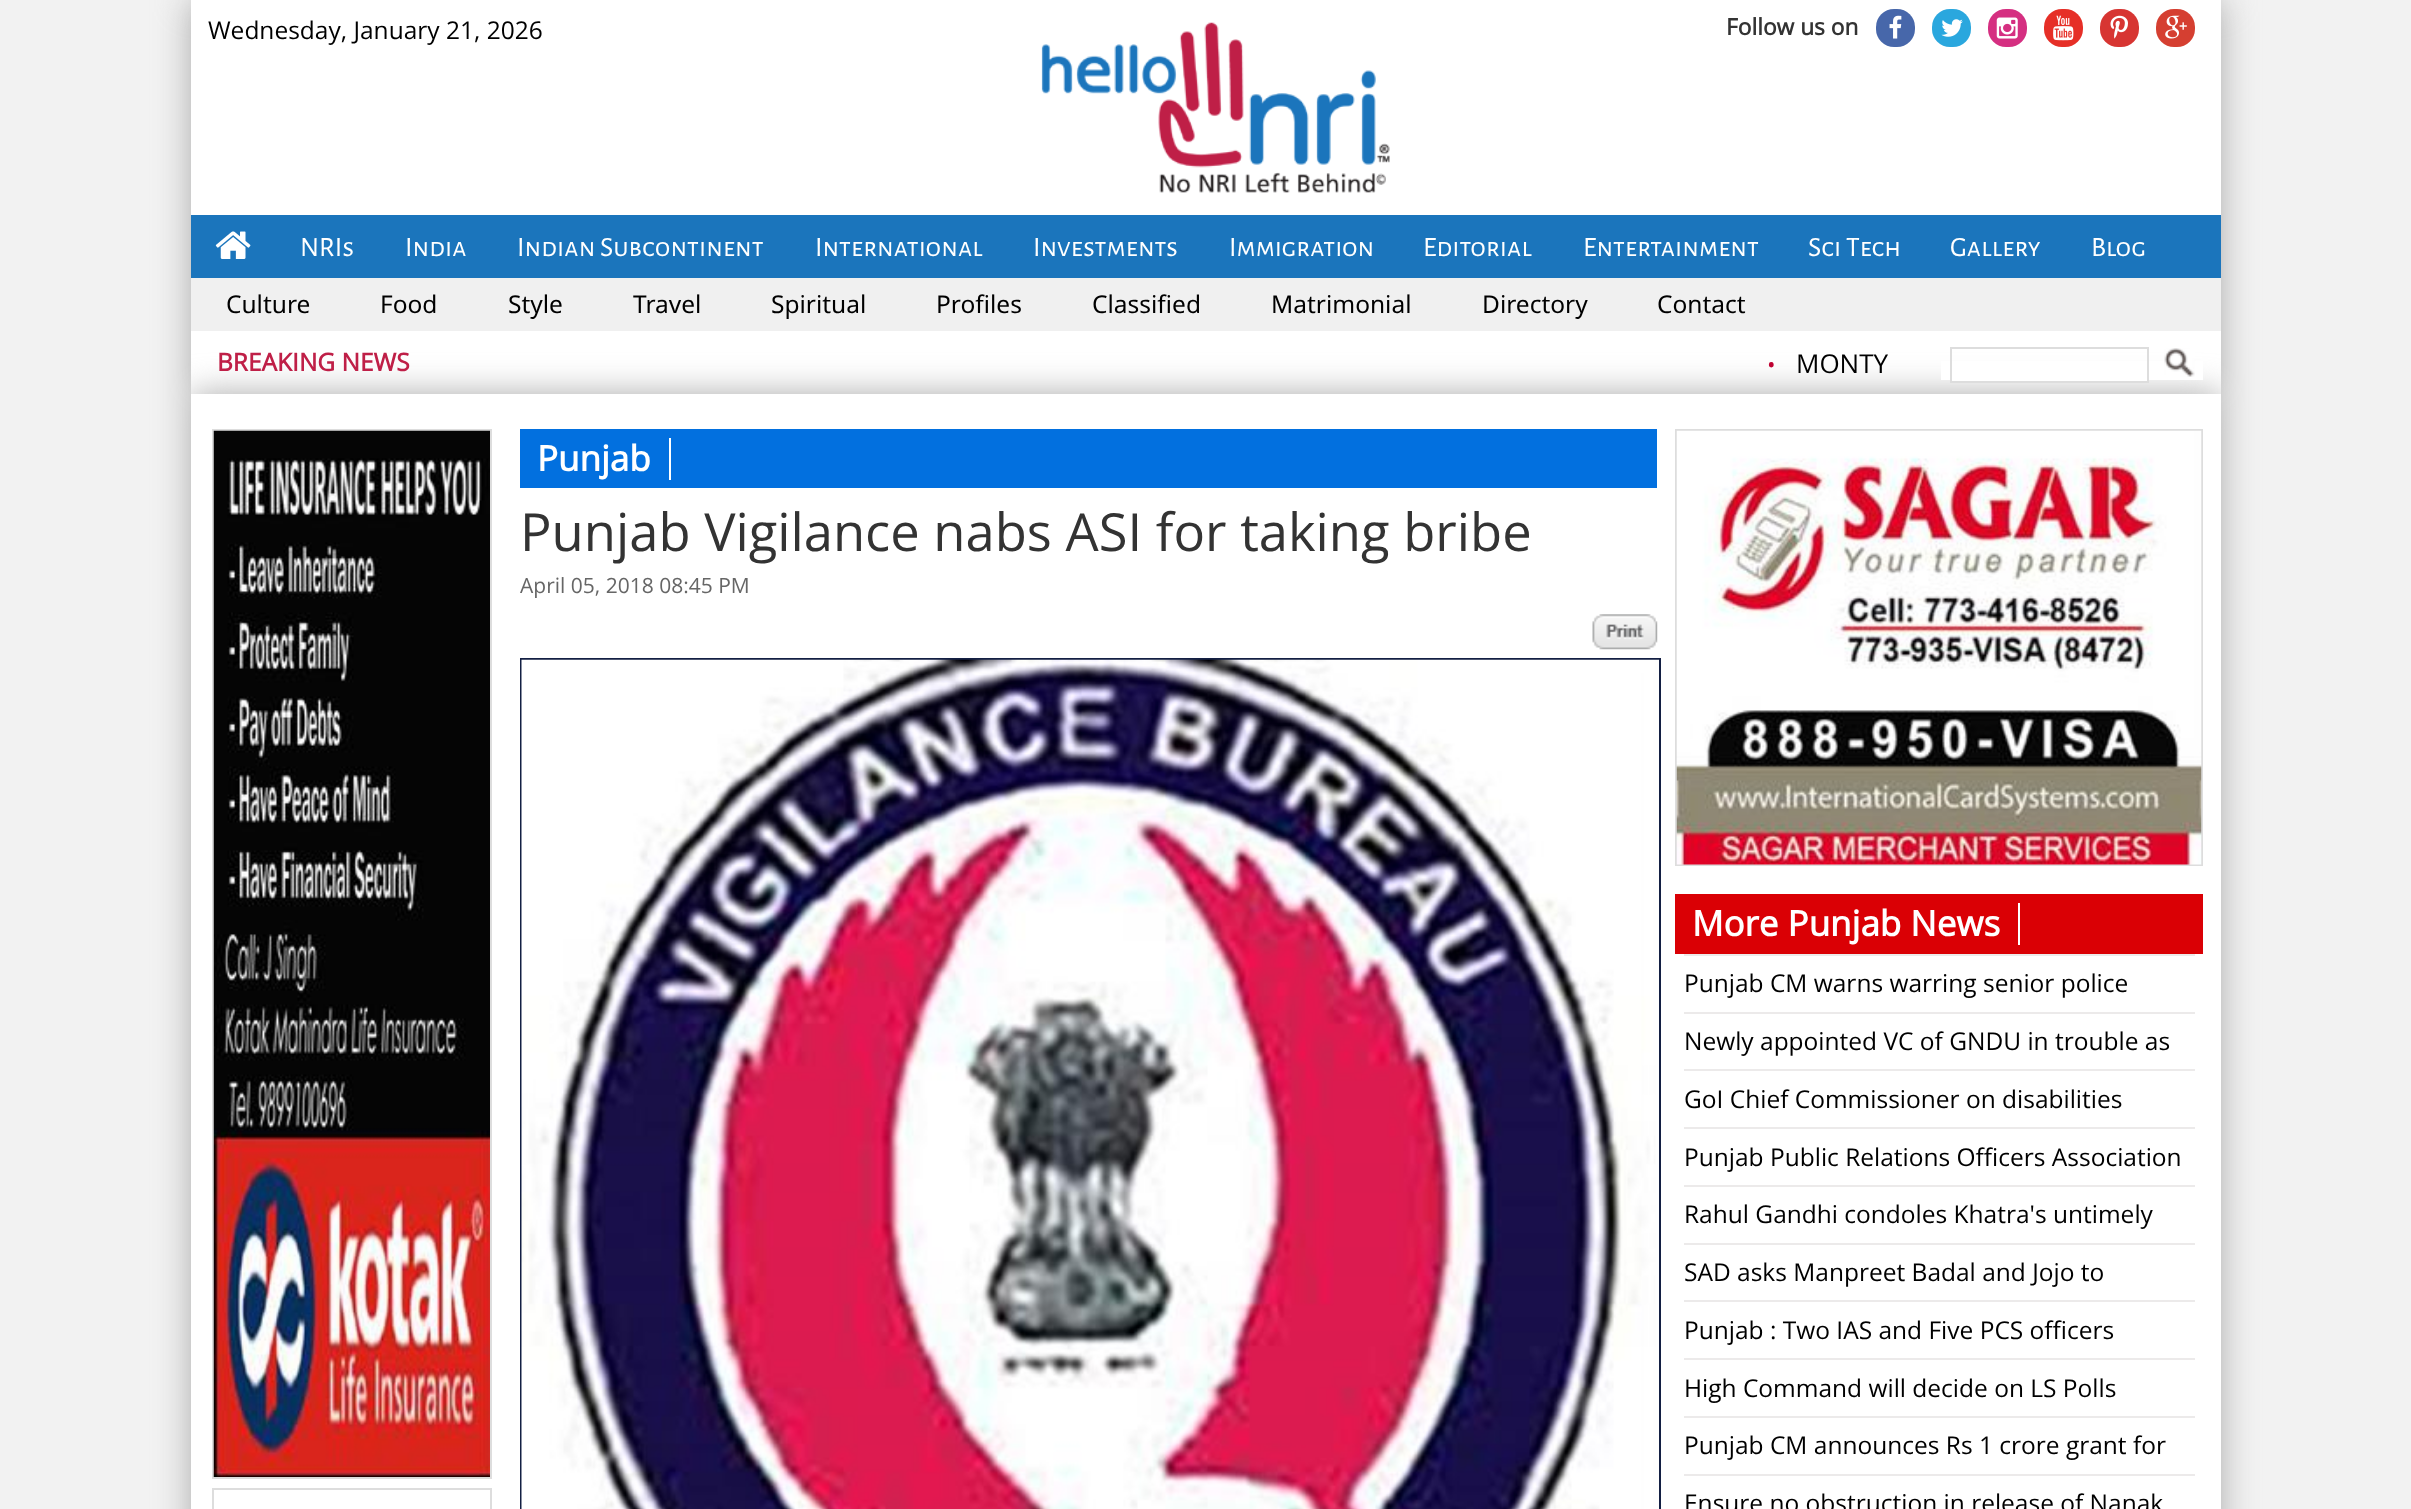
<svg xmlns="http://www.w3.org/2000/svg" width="2411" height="1509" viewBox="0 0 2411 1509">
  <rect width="100%" height="100%" fill="rgb(242,242,242)"/>
  <rect x="191" y="0" width="2030" height="394" fill="rgb(170,170,170)" filter="blur(17.5px)"/>
  <rect x="191" y="0" width="2030" height="394" fill="rgb(255,255,255)"/>
  <text x="208" y="39" font-family="Open Sans" font-size="24.5" fill="rgb(0,0,0)">Wednesday, January 21, 2026</text>
  <text x="1726" y="35" font-family="Open Sans" font-size="22.75" font-weight="bold" fill="rgb(51,51,51)">Follow us on</text>
  <rect x="1876" y="9" width="39" height="38" rx="18" fill="rgb(71,103,170)"/>
  <image x="1889" y="15" width="13" height="24" href="pic1.png"/>
  <rect x="1932" y="9" width="39" height="38" rx="18" fill="rgb(42,167,222)"/>
  <image x="1941" y="19" width="22" height="18" href="pic2.png"/>
  <rect x="1988" y="9" width="39" height="38" rx="18" fill="rgb(213,47,129)"/>
  <image x="1996" y="17" width="22" height="22" href="pic3.png"/>
  <rect x="2044" y="9" width="39" height="38" rx="18" fill="rgb(230,47,39)"/>
  <image x="2053" y="15" width="21" height="26" href="pic4.png"/>
  <rect x="2100" y="9" width="39" height="38" rx="18" fill="rgb(215,53,50)"/>
  <image x="2110" y="15" width="18" height="24" href="pic5.png"/>
  <rect x="2156" y="9" width="39" height="38" rx="18" fill="rgb(213,63,49)"/>
  <image x="2165" y="15" width="22" height="24" href="pic6.png"/>
  <image x="1041" y="22" width="349" height="171" href="pic7.png"/>
  <rect x="191" y="215" width="2030" height="63" fill="rgb(27,117,188)"/>
  <image x="215" y="231" width="36" height="28" href="pic8.png"/>
  <g font-family="Alegreya Sans SC" font-size="28" fill="rgb(255,255,255)">
    <text x="300" y="256">NRIs</text>
    <text x="405" y="256">India</text>
    <text x="517" y="256">Indian Subcontinent</text>
    <text x="815" y="256">International</text>
    <text x="1033" y="256">Investments</text>
    <text x="1229" y="256">Immigration</text>
    <text x="1423" y="256">Editorial</text>
    <text x="1583" y="256">Entertainment</text>
    <text x="1808" y="256">Sci Tech</text>
    <text x="1950" y="256">Gallery</text>
    <text x="2091" y="256">Blog</text>
  </g>
  <rect x="191" y="278" width="2030" height="53" fill="rgb(240,240,240)"/>
  <g font-family="Noto Sans" font-size="24.5" fill="rgb(0,0,0)">
    <text x="226" y="313">Culture</text>
    <text x="380" y="313">Food</text>
    <text x="508" y="313">Style</text>
    <text x="633" y="313">Travel</text>
    <text x="771" y="313">Spiritual</text>
    <text x="936" y="313">Profiles</text>
    <text x="1092" y="313">Classified</text>
    <text x="1271" y="313">Matrimonial</text>
    <text x="1482" y="313">Directory</text>
    <text x="1657" y="313">Contact</text>
  </g>
  <rect x="191" y="394" width="2030" height="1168" fill="rgb(170,170,170)" filter="blur(17.5px)"/>
  <text x="217" y="371" font-family="Open Sans" font-size="24.5" font-weight="bold" fill="rgb(191,31,71)">BREAKING NEWS</text>
  <text x="1767" y="373" font-family="Open Sans" font-size="22.75" fill="rgb(191,2,50)">•</text>
  <text x="1796" y="373" font-family="Open Sans" font-size="26" fill="rgb(0,0,0)">MONTY</text>
  <rect x="1941" y="361" width="262" height="19" fill="rgb(255,255,255)"/>
  <rect x="1952" y="380" width="195" height="1" fill="rgb(255,255,255)"/>
  <rect x="1951" y="348" width="197" height="34" fill="none" stroke="rgb(221,221,221)" stroke-width="2"/>
  <image x="2164" y="348" width="31" height="29" href="pic9.png"/>
  <rect x="191" y="394" width="2030" height="1115" fill="rgb(255,255,255)"/>
  <rect x="213" y="430" width="278" height="1048" fill="none" stroke="rgb(221,221,221)" stroke-width="2"/>
  <image x="213" y="430" width="277" height="1047" href="pic10.png"/>
  <rect x="213" y="1489" width="278" height="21" fill="none" stroke="rgb(221,221,221)" stroke-width="2"/>
  <rect x="520" y="429" width="1137" height="59" fill="rgb(2,112,223)"/>
  <rect x="669" y="438" width="2" height="42" fill="rgb(255,255,255)"/>
  <text x="537" y="471" font-family="Open Sans" font-size="35" font-weight="bold" fill="rgb(255,255,255)">Punjab</text>
  <text x="520" y="551" font-family="Open Sans" font-size="52.5" fill="rgb(51,51,51)">Punjab Vigilance nabs ASI for taking bribe</text>
  <text x="520" y="593" font-family="Open Sans" font-size="21" fill="rgb(102,102,102)">April 05, 2018 08:45 PM</text>
  <image x="1592" y="614" width="66" height="36" href="pic11.png"/>
  <rect x="521" y="659" width="1139" height="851" fill="none" stroke="rgb(19,31,67)" stroke-width="2"/>
  <image x="521" y="659" width="1138" height="850" href="pic12.png"/>
  <rect x="1676" y="430" width="526" height="435" fill="none" stroke="rgb(221,221,221)" stroke-width="2"/>
  <image x="1676" y="430" width="526" height="435" href="pic13.png"/>
  <rect x="1675" y="894" width="528" height="60" fill="rgb(218,0,5)"/>
  <rect x="2018" y="903" width="2" height="42" fill="rgb(255,255,255)"/>
  <text x="1692" y="936" font-family="Open Sans" font-size="35" font-weight="bold" fill="rgb(255,255,255)">More Punjab News</text>
  <rect x="1684" y="954" width="511" height="2" fill="rgb(236,234,234)"/>
  <text x="1684" y="992" font-family="Open Sans" font-size="24.5" fill="rgb(0,0,0)">Punjab CM warns warring senior police</text>
  <rect x="1684" y="1012" width="511" height="2" fill="rgb(236,234,234)"/>
  <text x="1684" y="1050" font-family="Open Sans" font-size="24.5" fill="rgb(0,0,0)">Newly appointed VC of GNDU in trouble as</text>
  <rect x="1684" y="1069" width="511" height="2" fill="rgb(236,234,234)"/>
  <text x="1684" y="1108" font-family="Open Sans" font-size="24.5" fill="rgb(0,0,0)">GoI Chief Commissioner on disabilities</text>
  <rect x="1684" y="1127" width="511" height="2" fill="rgb(236,234,234)"/>
  <text x="1684" y="1166" font-family="Open Sans" font-size="24.5" fill="rgb(0,0,0)">Punjab Public Relations Officers Association</text>
  <rect x="1684" y="1185" width="511" height="2" fill="rgb(236,234,234)"/>
  <text x="1684" y="1223" font-family="Open Sans" font-size="24.5" fill="rgb(0,0,0)">Rahul Gandhi condoles Khatra's untimely</text>
  <rect x="1684" y="1243" width="511" height="2" fill="rgb(236,234,234)"/>
  <text x="1684" y="1281" font-family="Open Sans" font-size="24.5" fill="rgb(0,0,0)">SAD asks Manpreet Badal and Jojo to</text>
  <rect x="1684" y="1300" width="511" height="2" fill="rgb(236,234,234)"/>
  <text x="1684" y="1339" font-family="Open Sans" font-size="24.5" fill="rgb(0,0,0)">Punjab : Two IAS and Five PCS officers</text>
  <rect x="1684" y="1358" width="511" height="2" fill="rgb(236,234,234)"/>
  <text x="1684" y="1397" font-family="Open Sans" font-size="24.5" fill="rgb(0,0,0)">High Command will decide on LS Polls</text>
  <rect x="1684" y="1416" width="511" height="2" fill="rgb(236,234,234)"/>
  <text x="1684" y="1454" font-family="Open Sans" font-size="24.5" fill="rgb(0,0,0)">Punjab CM announces Rs 1 crore grant for</text>
  <rect x="1684" y="1474" width="511" height="2" fill="rgb(236,234,234)"/>
  <text x="1684" y="1512" font-family="Open Sans" font-size="24.5" fill="rgb(0,0,0)">Ensure no obstruction in release of Nanak</text>
</svg>
